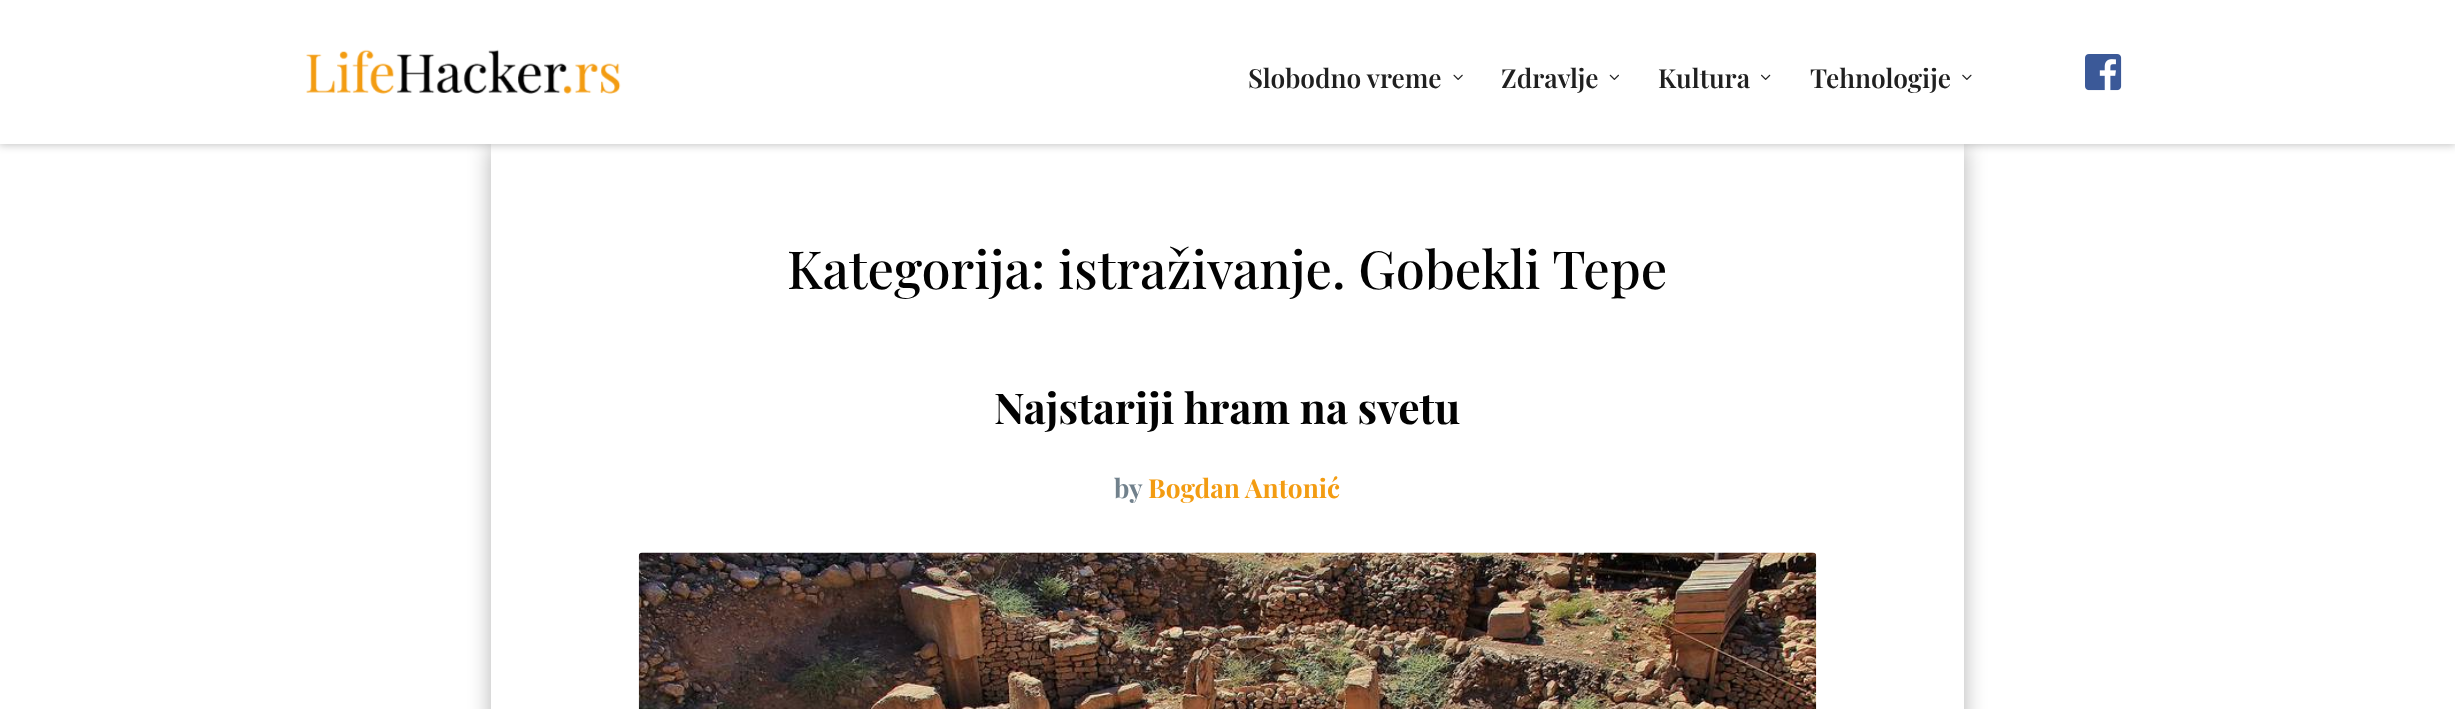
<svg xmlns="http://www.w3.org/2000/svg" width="2455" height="709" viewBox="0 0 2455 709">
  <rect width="100%" height="100%" fill="rgb(255,255,255)"/>
  <rect x="491" y="146" width="1473" height="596" fill="rgba(0,0,0,0.3)" filter="blur(11px)"/>
  <rect x="491" y="144" width="1473" height="565" fill="rgb(255,255,255)"/>
  <rect x="-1" y="-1" width="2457" height="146" fill="rgba(0,0,0,0.24)" filter="blur(4px)"/>
  <rect x="0" y="0" width="2455" height="144" fill="rgb(255,255,255)"/>
  <image x="306" y="49" width="315" height="45" href="pic1.png"/>
  <text x="1248" y="88" font-family="Playfair Display" font-size="26.25" font-weight="600" fill="rgb(32,32,32)">Slobodno vreme</text>
  <image x="1453" y="74" width="10" height="6" href="pic2.png"/>
  <text x="1501" y="88" font-family="Playfair Display" font-size="26.25" font-weight="600" fill="rgb(32,32,32)">Zdravlje</text>
  <image x="1609" y="74" width="10" height="6" href="pic3.png"/>
  <text x="1658" y="88" font-family="Playfair Display" font-size="26.25" font-weight="600" fill="rgb(32,32,32)">Kultura</text>
  <image x="1761" y="74" width="10" height="6" href="pic4.png"/>
  <text x="1810" y="88" font-family="Playfair Display" font-size="26.25" font-weight="600" fill="rgb(32,32,32)">Tehnologije</text>
  <image x="1962" y="74" width="10" height="6" href="pic5.png"/>
  <image x="2085" y="54" width="37" height="37" href="pic6.png"/>
  <text x="787" y="289" font-family="Playfair Display" font-size="52.5" font-weight="500" fill="rgb(2,2,2)">Kategorija: istraživanje. Gobekli Tepe</text>
  <text x="994" y="424" font-family="Playfair Display" font-size="42.5" font-weight="bold" fill="rgb(2,2,2)">Najstariji hram na svetu</text>
  <text x="1114" y="498" font-family="Playfair Display" font-size="26.25" font-weight="bold" fill="rgb(113,129,140)">by</text>
  <text x="1148" y="498" font-family="Playfair Display" font-size="26.25" font-weight="bold" fill="rgb(243,156,18)">Bogdan Antonić</text>
  <image x="638" y="552" width="1179" height="157" href="pic7.png"/>
</svg>
